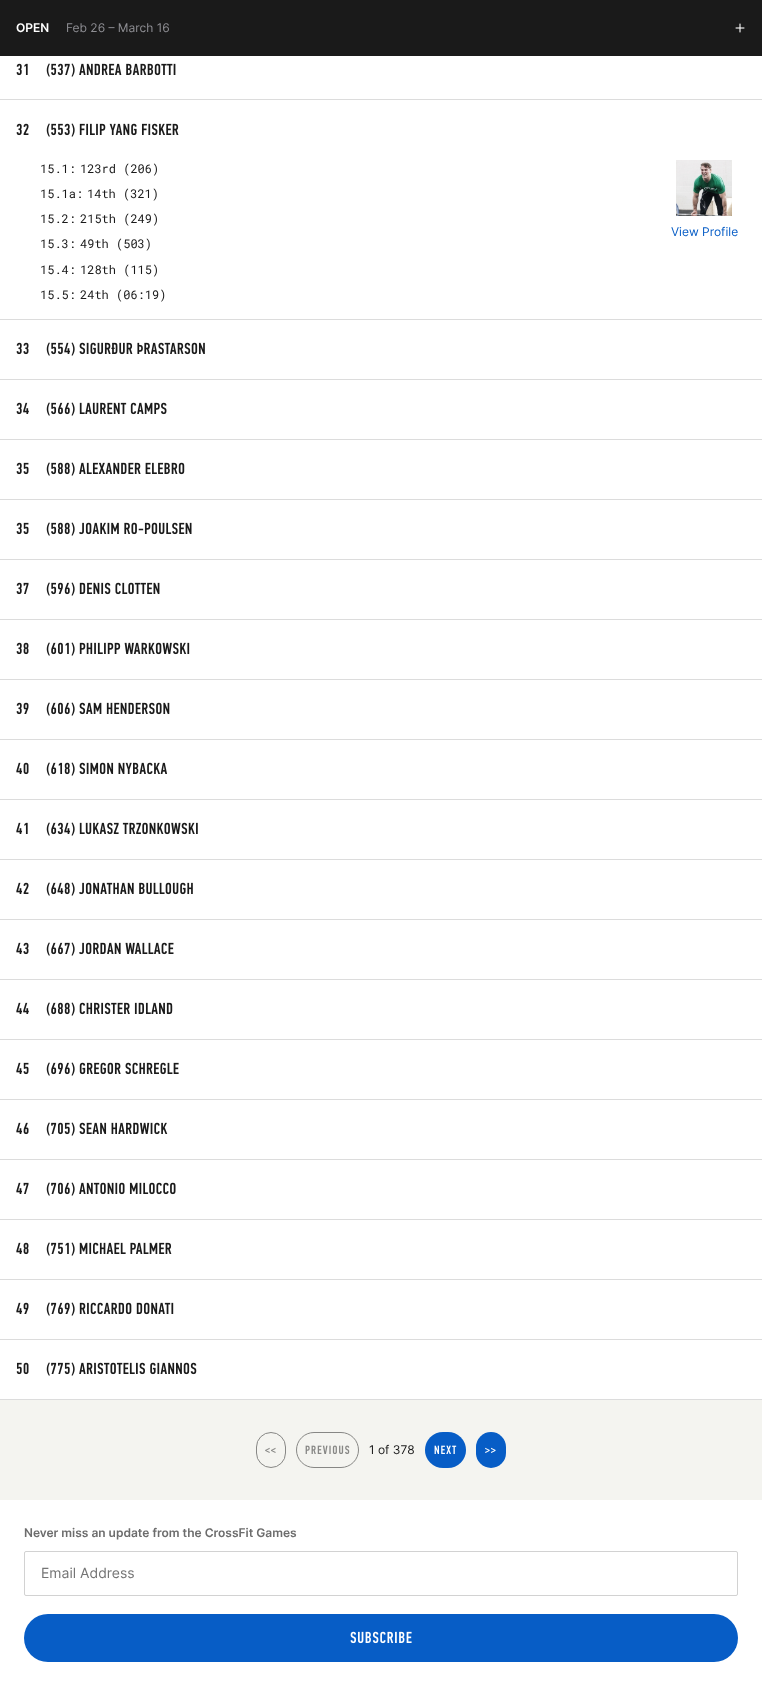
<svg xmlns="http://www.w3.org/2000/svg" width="762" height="1702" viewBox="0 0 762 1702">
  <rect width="100%" height="100%" fill="rgb(255,255,255)"/>
  <rect x="0" y="0" width="762" height="56" fill="rgb(26,26,26)"/>
  <text x="16" y="32" font-family="Inter" font-size="12" font-weight="600" fill="rgb(255,255,255)">OPEN</text>
  <text x="66" y="32" font-family="Inter" font-size="12" fill="rgb(142,142,147)">Feb 26 – March 16</text>
  <image x="735" y="23" width="10" height="10" href="pic1.png"/>
  <rect x="0" y="1400" width="762" height="100" fill="rgb(244,244,240)"/>
  <rect x="0" y="99" width="762" height="1" fill="rgb(220,220,220)"/>
  <image x="16" y="63" width="12" height="13" href="pic2.png"/>
  <image x="46" y="63" width="29" height="14" href="pic3.png"/>
  <image x="79" y="63" width="97" height="13" href="pic4.png"/>
  <image x="16" y="123" width="13" height="13" href="pic5.png"/>
  <image x="46" y="123" width="29" height="14" href="pic6.png"/>
  <image x="79" y="123" width="100" height="13" href="pic7.png"/>
  <rect x="0" y="319" width="762" height="1" fill="rgb(220,220,220)"/>
  <g font-family="Roboto Mono" font-size="12" fill="rgb(26,26,26)">
    <text x="40" y="173">15.1:</text>
    <text x="80" y="173">123rd (206)</text>
    <text x="40" y="198">15.1a:</text>
    <text x="87" y="198">14th (321)</text>
    <text x="40" y="223">15.2:</text>
    <text x="80" y="223">215th (249)</text>
    <text x="40" y="248">15.3:</text>
    <text x="80" y="248">49th (503)</text>
    <text x="40" y="274">15.4:</text>
    <text x="80" y="274">128th (115)</text>
    <text x="40" y="299">15.5:</text>
    <text x="80" y="299">24th (06:19)</text>
  </g>
  <image x="676" y="160" width="56" height="56" href="pic8.png"/>
  <text x="671" y="236" font-family="Inter" font-size="12" fill="rgb(7,93,198)">View Profile</text>
  <rect x="0" y="379" width="762" height="1" fill="rgb(220,220,220)"/>
  <image x="16" y="342" width="13" height="13" href="pic9.png"/>
  <image x="46" y="342" width="29" height="14" href="pic10.png"/>
  <image x="79" y="342" width="126" height="13" href="pic11.png"/>
  <rect x="0" y="439" width="762" height="1" fill="rgb(220,220,220)"/>
  <image x="16" y="402" width="13" height="13" href="pic12.png"/>
  <image x="46" y="402" width="29" height="14" href="pic13.png"/>
  <image x="79" y="402" width="88" height="13" href="pic14.png"/>
  <rect x="0" y="499" width="762" height="1" fill="rgb(220,220,220)"/>
  <image x="16" y="462" width="13" height="13" href="pic15.png"/>
  <image x="46" y="462" width="29" height="14" href="pic16.png"/>
  <image x="79" y="462" width="106" height="13" href="pic17.png"/>
  <rect x="0" y="559" width="762" height="1" fill="rgb(220,220,220)"/>
  <image x="16" y="522" width="13" height="13" href="pic15.png"/>
  <image x="46" y="522" width="29" height="14" href="pic16.png"/>
  <image x="79" y="522" width="113" height="13" href="pic18.png"/>
  <rect x="0" y="619" width="762" height="1" fill="rgb(220,220,220)"/>
  <image x="16" y="582" width="13" height="13" href="pic19.png"/>
  <image x="46" y="582" width="29" height="14" href="pic20.png"/>
  <image x="79" y="582" width="81" height="13" href="pic21.png"/>
  <rect x="0" y="679" width="762" height="1" fill="rgb(220,220,220)"/>
  <image x="16" y="642" width="13" height="13" href="pic22.png"/>
  <image x="46" y="642" width="29" height="14" href="pic23.png"/>
  <image x="79" y="642" width="111" height="13" href="pic24.png"/>
  <rect x="0" y="739" width="762" height="1" fill="rgb(220,220,220)"/>
  <image x="16" y="702" width="13" height="13" href="pic25.png"/>
  <image x="46" y="702" width="29" height="14" href="pic26.png"/>
  <image x="79" y="702" width="91" height="13" href="pic27.png"/>
  <rect x="0" y="799" width="762" height="1" fill="rgb(220,220,220)"/>
  <image x="16" y="762" width="13" height="13" href="pic28.png"/>
  <image x="46" y="762" width="29" height="14" href="pic29.png"/>
  <image x="79" y="762" width="88" height="13" href="pic30.png"/>
  <rect x="0" y="859" width="762" height="1" fill="rgb(220,220,220)"/>
  <image x="16" y="822" width="12" height="12" href="pic31.png"/>
  <image x="46" y="822" width="29" height="14" href="pic32.png"/>
  <image x="79" y="822" width="119" height="13" href="pic33.png"/>
  <rect x="0" y="919" width="762" height="1" fill="rgb(220,220,220)"/>
  <image x="16" y="882" width="13" height="12" href="pic34.png"/>
  <image x="46" y="882" width="29" height="14" href="pic35.png"/>
  <image x="79" y="882" width="114" height="13" href="pic36.png"/>
  <rect x="0" y="979" width="762" height="1" fill="rgb(220,220,220)"/>
  <image x="16" y="942" width="13" height="13" href="pic37.png"/>
  <image x="46" y="942" width="29" height="14" href="pic38.png"/>
  <image x="79" y="942" width="95" height="13" href="pic39.png"/>
  <rect x="0" y="1039" width="762" height="1" fill="rgb(220,220,220)"/>
  <image x="16" y="1002" width="13" height="12" href="pic40.png"/>
  <image x="46" y="1002" width="29" height="14" href="pic41.png"/>
  <image x="79" y="1002" width="94" height="13" href="pic42.png"/>
  <rect x="0" y="1099" width="762" height="1" fill="rgb(220,220,220)"/>
  <image x="16" y="1062" width="13" height="13" href="pic43.png"/>
  <image x="46" y="1062" width="29" height="14" href="pic44.png"/>
  <image x="79" y="1062" width="100" height="13" href="pic45.png"/>
  <rect x="0" y="1159" width="762" height="1" fill="rgb(220,220,220)"/>
  <image x="16" y="1122" width="13" height="13" href="pic46.png"/>
  <image x="46" y="1122" width="29" height="14" href="pic47.png"/>
  <image x="79" y="1122" width="89" height="13" href="pic48.png"/>
  <rect x="0" y="1219" width="762" height="1" fill="rgb(220,220,220)"/>
  <image x="16" y="1182" width="13" height="12" href="pic49.png"/>
  <image x="46" y="1182" width="29" height="14" href="pic50.png"/>
  <image x="79" y="1182" width="97" height="13" href="pic51.png"/>
  <rect x="0" y="1279" width="762" height="1" fill="rgb(220,220,220)"/>
  <image x="16" y="1242" width="13" height="13" href="pic52.png"/>
  <image x="46" y="1242" width="29" height="14" href="pic53.png"/>
  <image x="79" y="1242" width="93" height="13" href="pic54.png"/>
  <rect x="0" y="1339" width="762" height="1" fill="rgb(220,220,220)"/>
  <image x="16" y="1302" width="13" height="12" href="pic55.png"/>
  <image x="46" y="1302" width="29" height="14" href="pic56.png"/>
  <image x="79" y="1302" width="95" height="13" href="pic57.png"/>
  <rect x="0" y="1399" width="762" height="1" fill="rgb(220,220,220)"/>
  <image x="16" y="1362" width="13" height="13" href="pic58.png"/>
  <image x="46" y="1362" width="29" height="14" href="pic59.png"/>
  <image x="79" y="1362" width="118" height="13" href="pic60.png"/>
  <rect x="256.5" y="1432.5" width="29" height="35" rx="14.5" fill="none" stroke="rgb(135,135,133)"/>
  <image x="265" y="1447" width="11" height="6" href="pic61.png"/>
  <rect x="296.5" y="1432.5" width="62" height="35" rx="17.5" fill="none" stroke="rgb(135,135,133)"/>
  <image x="305" y="1445" width="45" height="9" href="pic62.png"/>
  <text x="369" y="1454" font-family="Inter" font-size="12" fill="rgb(26,26,26)">1 of 378</text>
  <rect x="425" y="1432" width="41" height="36" rx="18" fill="rgb(7,93,198)"/>
  <image x="434" y="1445" width="23" height="9" href="pic63.png"/>
  <rect x="476" y="1432" width="30" height="36" rx="15" fill="rgb(7,93,198)"/>
  <image x="485" y="1447" width="11" height="6" href="pic64.png"/>
  <text x="24" y="1537" font-family="Inter" font-size="12" font-weight="600" fill="rgb(109,109,109)">Never miss an update from the CrossFit Games</text>
  <rect x="24.5" y="1551.5" width="713" height="44" rx="1.5" fill="none" stroke="rgb(210,210,210)"/>
  <text x="41" y="1578" font-family="Inter" font-size="14" fill="rgb(117,117,117)">Email Address</text>
  <rect x="24" y="1614" width="714" height="48" rx="24" fill="rgb(7,93,198)"/>
  <image x="350" y="1631" width="62" height="13" href="pic65.png"/>
</svg>
